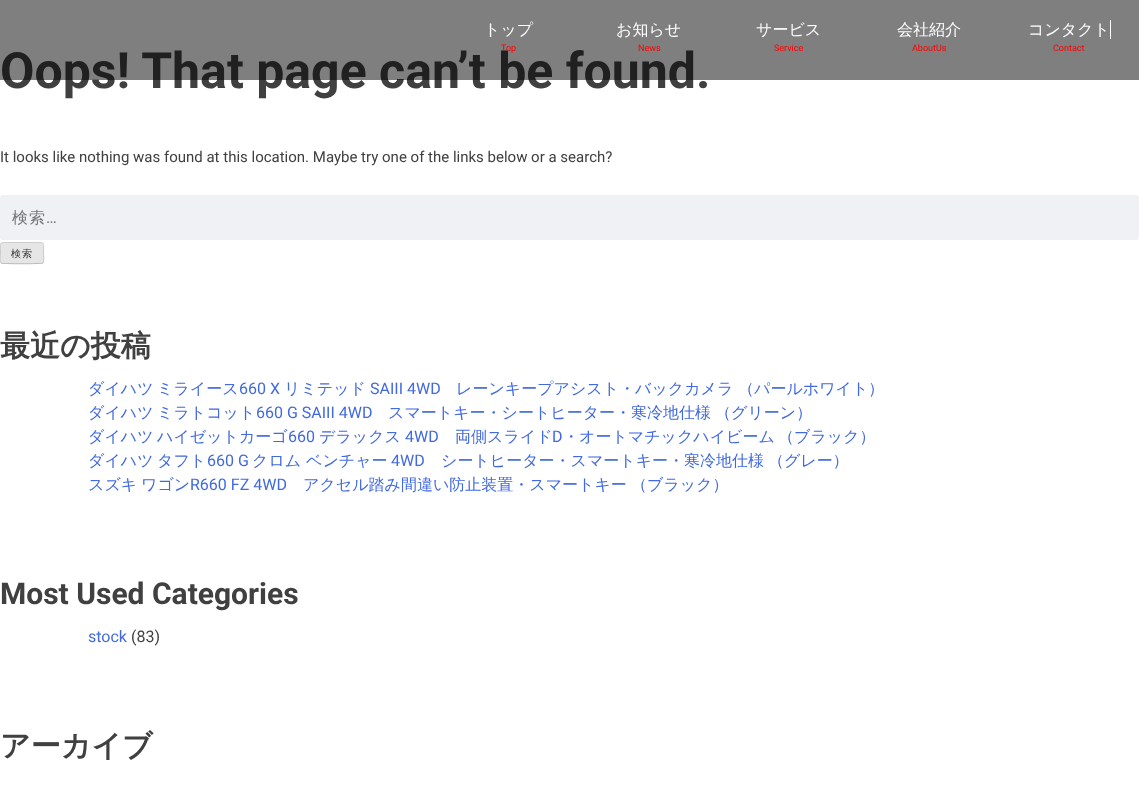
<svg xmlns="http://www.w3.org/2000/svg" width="1139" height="797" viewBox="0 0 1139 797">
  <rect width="100%" height="100%" fill="rgb(255,255,255)"/>
  <text x="0" y="88" font-family="Roboto" font-size="50" font-weight="bold" fill="rgb(64,64,64)">Oops! That page can’t be found.</text>
  <rect x="0" y="0" width="1139" height="80" fill="rgba(0,0,0,0.5)"/>
  <text x="484" y="35" font-family="WenQuanYi Zen Hei" font-size="16" font-weight="500" fill="rgb(254,254,254)">トップ</text>
  <text x="501" y="51" font-family="Roboto" font-size="9" fill="rgb(255,0,0)">Top</text>
  <text x="616" y="35" font-family="WenQuanYi Zen Hei" font-size="16" font-weight="500" fill="rgb(254,254,254)">お知らせ</text>
  <text x="638" y="51" font-family="Roboto" font-size="9" fill="rgb(255,0,0)">News</text>
  <text x="756" y="35" font-family="WenQuanYi Zen Hei" font-size="16" font-weight="500" fill="rgb(254,254,254)">サービス</text>
  <text x="774" y="51" font-family="Roboto" font-size="9" fill="rgb(255,0,0)">Service</text>
  <text x="897" y="35" font-family="WenQuanYi Zen Hei" font-size="16" font-weight="500" fill="rgb(254,254,254)">会社紹介</text>
  <text x="912" y="51" font-family="Roboto" font-size="9" fill="rgb(255,0,0)">AboutUs</text>
  <rect x="1110" y="20" width="1" height="19" fill="rgb(254,254,254)"/>
  <text x="1028" y="35" font-family="WenQuanYi Zen Hei" font-size="16" font-weight="500" fill="rgb(254,254,254)">コンタクト</text>
  <text x="1053" y="51" font-family="Roboto" font-size="9" fill="rgb(255,0,0)">Contact</text>
  <text x="0" y="162" font-family="Roboto" font-size="15" fill="rgb(64,64,64)">It looks like nothing was found at this location. Maybe try one of the links below or a search?</text>
  <rect x="0" y="195" width="1139" height="45" rx="3" fill="rgb(239,241,245)"/>
  <text x="12" y="223" font-family="WenQuanYi Zen Hei" font-size="16" font-weight="500" letter-spacing="1" fill="rgb(117,117,117)">検索</text>
  <text x="46" y="223" font-family="Roboto" font-size="16" letter-spacing="1" fill="rgb(117,117,117)">…</text>
  <rect x="0" y="242" width="44" height="22" rx="3" fill="rgb(230,230,230)"/>
  <path d="M43 263C41.5 264 2.5 264 1 263" fill="none" stroke="rgb(187,187,187)"/>
  <path d="M1 263C-.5 261 .5 255 .5 253C.5 242-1.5 242.5 9.5 242.5H34.5C45.5 242.5 43.5 242 43.5 253C43.5 255 44.5 261 43 263" fill="none" stroke="rgb(204,204,204)"/>
  <text x="11" y="257" font-family="WenQuanYi Zen Hei" font-size="10" font-weight="500" letter-spacing="1" fill="rgb(46,46,46)">検索</text>
  <text x="0" y="356" font-family="WenQuanYi Zen Hei" font-size="30" font-weight="bold" fill="rgb(64,64,64)">最近の投稿</text>
  <g font-family="WenQuanYi Zen Hei" font-size="16" font-weight="500" fill="rgb(65,105,225)">
    <text x="88" y="394">ダイハツ</text>
    <text x="157" y="394">ミライース</text>
  </g>
  <text x="239" y="394" font-family="Roboto" font-size="16" fill="rgb(65,105,225)">660 X</text>
  <text x="284" y="394" font-family="WenQuanYi Zen Hei" font-size="16" font-weight="500" fill="rgb(65,105,225)">リミテッド</text>
  <text x="370" y="394" font-family="Roboto" font-size="16" fill="rgb(65,105,225)">SAIII 4WD</text>
  <g font-family="WenQuanYi Zen Hei" font-size="16" font-weight="500" fill="rgb(65,105,225)">
    <text x="456" y="394">レーンキープアシスト・バックカメラ</text>
    <text x="738" y="394">（パールホワイト）</text>
    <text x="88" y="418">ダイハツ</text>
    <text x="157" y="418">ミラトコット</text>
  </g>
  <text x="256" y="418" font-family="Roboto" font-size="16" fill="rgb(65,105,225)">660 G SAIII 4WD</text>
  <g font-family="WenQuanYi Zen Hei" font-size="16" font-weight="500" fill="rgb(65,105,225)">
    <text x="388" y="418">スマートキー・シートヒーター・寒冷地仕様</text>
    <text x="715" y="418">（グリーン）</text>
    <text x="88" y="442">ダイハツ</text>
    <text x="157" y="442">ハイゼットカーゴ</text>
  </g>
  <text x="288" y="442" font-family="Roboto" font-size="16" fill="rgb(65,105,225)">660</text>
  <text x="319" y="442" font-family="WenQuanYi Zen Hei" font-size="16" font-weight="500" fill="rgb(65,105,225)">デラックス</text>
  <text x="405" y="442" font-family="Roboto" font-size="16" fill="rgb(65,105,225)">4WD</text>
  <text x="455" y="442" font-family="WenQuanYi Zen Hei" font-size="16" font-weight="500" fill="rgb(65,105,225)">両側スライド</text>
  <text x="552" y="442" font-family="Roboto" font-size="16" fill="rgb(65,105,225)">D</text>
  <g font-family="WenQuanYi Zen Hei" font-size="16" font-weight="500" fill="rgb(65,105,225)">
    <text x="563" y="442">・オートマチックハイビーム</text>
    <text x="778" y="442">（ブラック）</text>
    <text x="88" y="466">ダイハツ</text>
    <text x="157" y="466">タフト</text>
  </g>
  <text x="207" y="466" font-family="Roboto" font-size="16" fill="rgb(65,105,225)">660 G</text>
  <g font-family="WenQuanYi Zen Hei" font-size="16" font-weight="500" fill="rgb(65,105,225)">
    <text x="252" y="466">クロム</text>
    <text x="306" y="466">ベンチャー</text>
  </g>
  <text x="391" y="466" font-family="Roboto" font-size="16" fill="rgb(65,105,225)">4WD</text>
  <g font-family="WenQuanYi Zen Hei" font-size="16" font-weight="500" fill="rgb(65,105,225)">
    <text x="441" y="466">シートヒーター・スマートキー・寒冷地仕様</text>
    <text x="768" y="466">（グレー）</text>
    <text x="88" y="490">スズキ</text>
    <text x="141" y="490">ワゴン</text>
  </g>
  <text x="190" y="490" font-family="Roboto" font-size="16" fill="rgb(65,105,225)">R660 FZ 4WD</text>
  <g font-family="WenQuanYi Zen Hei" font-size="16" font-weight="500" fill="rgb(65,105,225)">
    <text x="303" y="490">アクセル踏み間違い防止装置・スマートキー</text>
    <text x="631" y="490">（ブラック）</text>
  </g>
  <text x="0" y="604" font-family="Roboto" font-size="30" font-weight="bold" fill="rgb(64,64,64)">Most Used Categories</text>
  <text x="88" y="642" font-family="Roboto" font-size="16" fill="rgb(65,105,225)">stock</text>
  <text x="131" y="642" font-family="Roboto" font-size="16" fill="rgb(64,64,64)">(83)</text>
  <text x="0" y="756" font-family="WenQuanYi Zen Hei" font-size="30" font-weight="bold" fill="rgb(64,64,64)">アーカイブ</text>
</svg>
